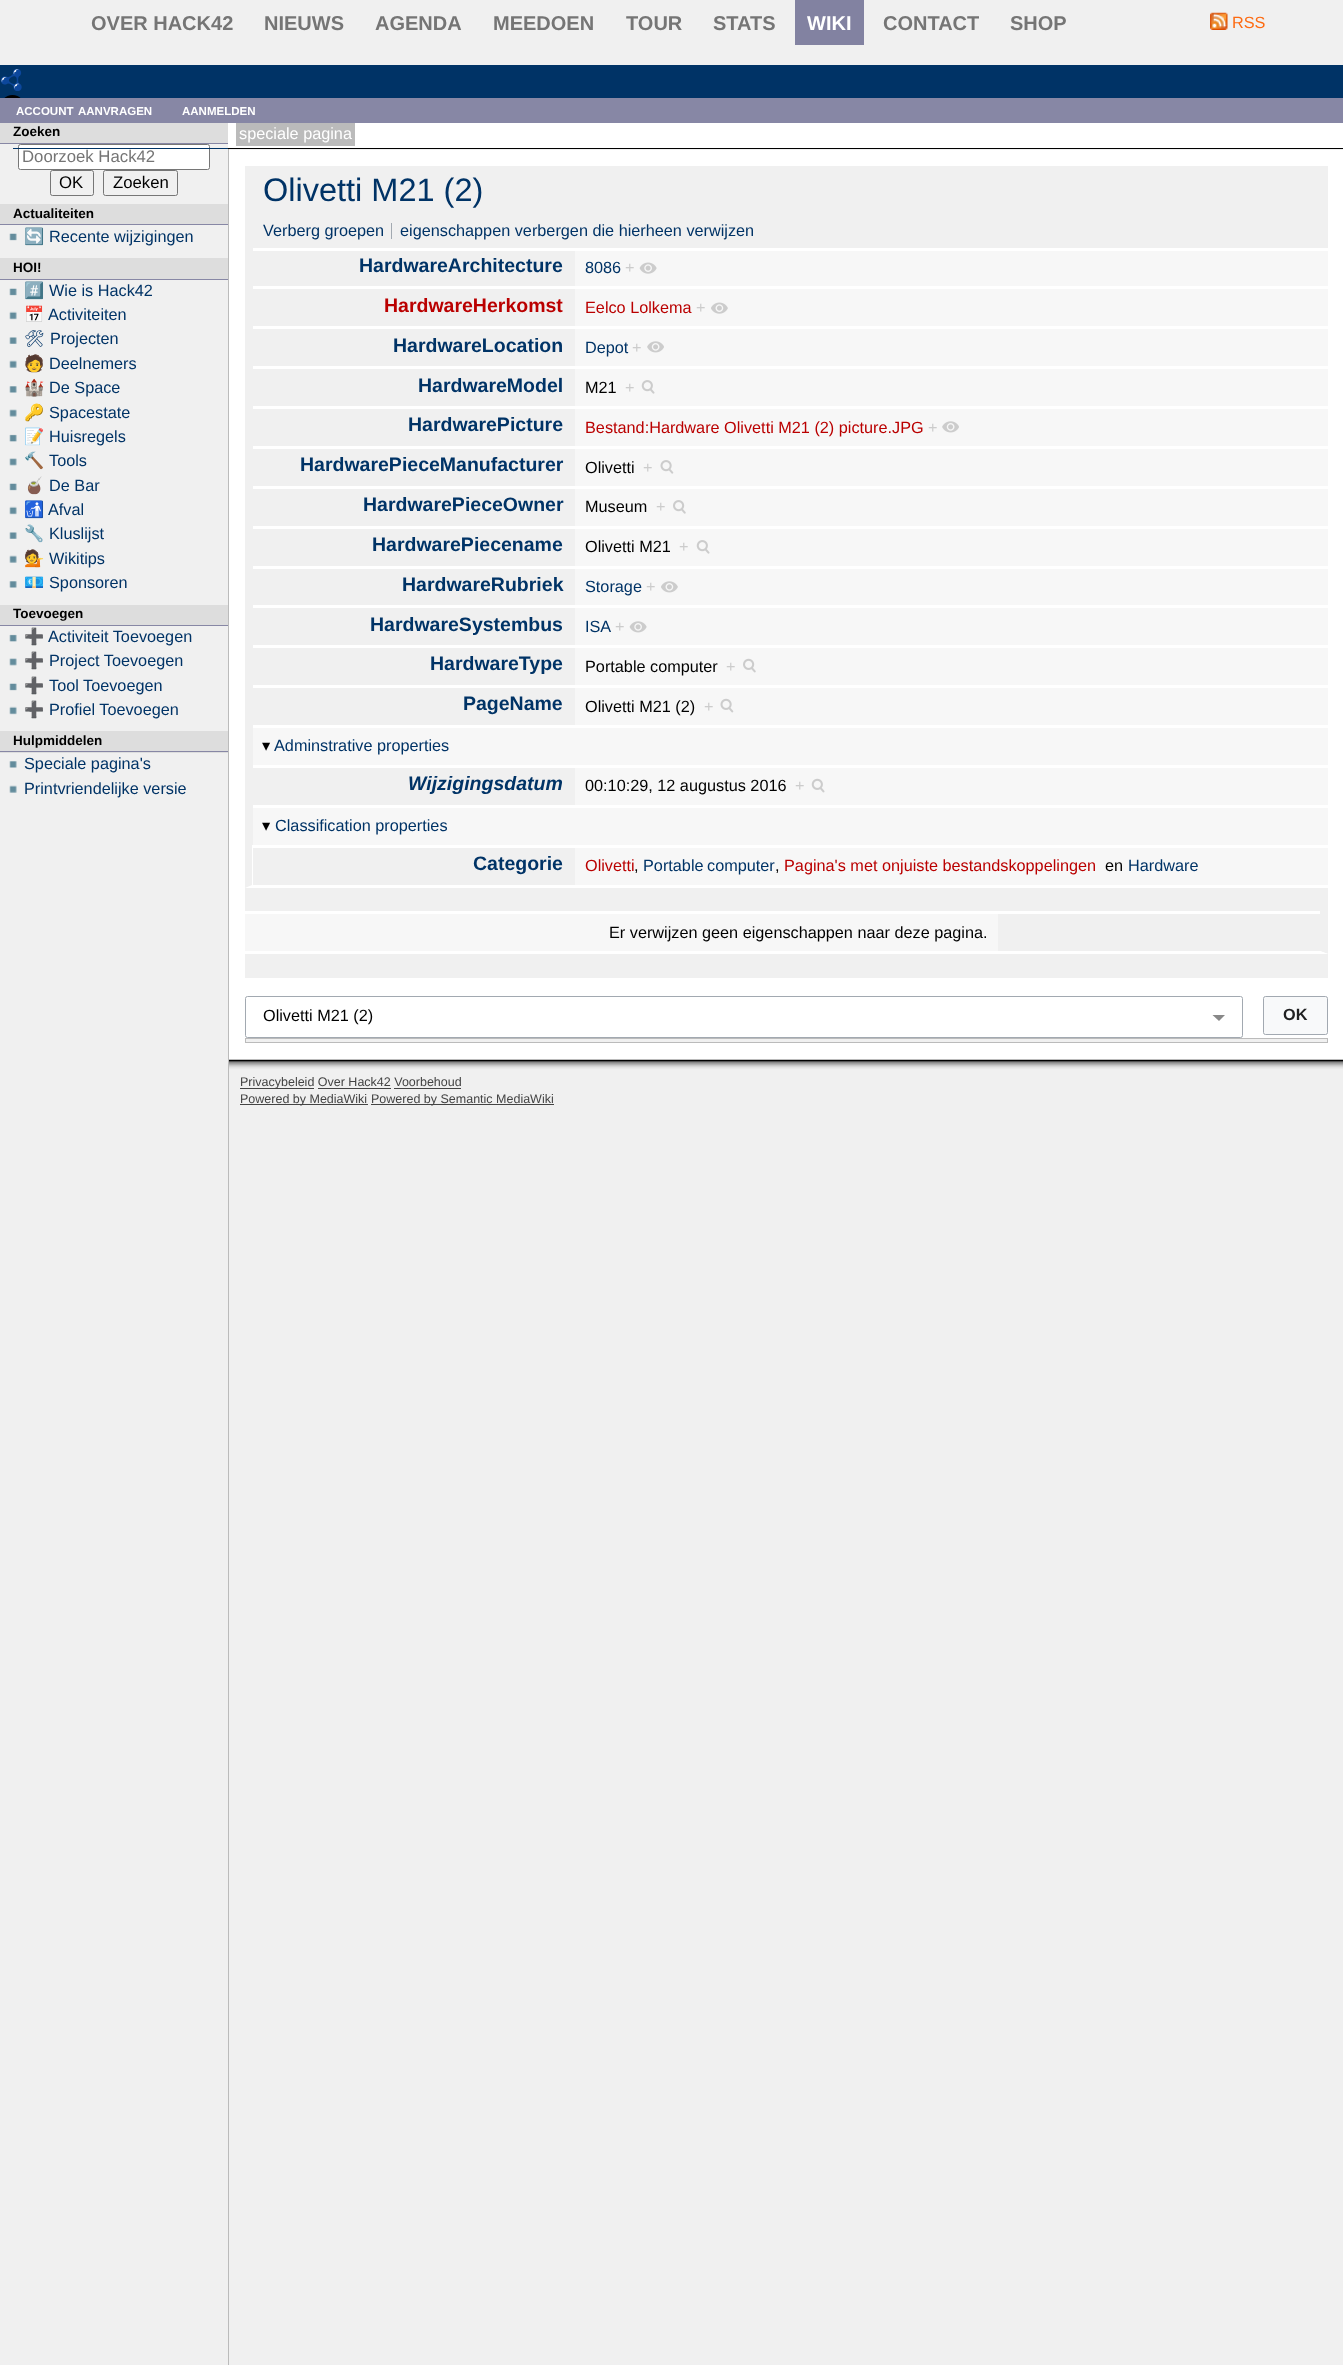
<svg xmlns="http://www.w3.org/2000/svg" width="1343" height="2365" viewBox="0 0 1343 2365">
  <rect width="100%" height="100%" fill="rgb(240,240,240)"/>
  <g font-family="Liberation Sans" font-size="20" font-weight="bold" fill="rgb(117,117,117)">
    <text x="91" y="30">OVER HACK42</text>
    <text x="264" y="30">NIEUWS</text>
    <text x="375" y="30">AGENDA</text>
    <text x="493" y="30">MEEDOEN</text>
    <text x="626" y="30">TOUR</text>
    <text x="713" y="30">STATS</text>
  </g>
  <rect x="795" y="0" width="69" height="45" fill="rgb(130,130,161)"/>
  <text x="807" y="30" font-family="Liberation Sans" font-size="20" font-weight="bold" fill="rgb(255,255,255)">WIKI</text>
  <g font-family="Liberation Sans" font-size="20" font-weight="bold" fill="rgb(117,117,117)">
    <text x="883" y="30">CONTACT</text>
    <text x="1010" y="30">SHOP</text>
  </g>
  <image x="1210" y="12" width="18" height="18" href="pic1.png"/>
  <text x="1232" y="28" font-family="Liberation Sans" font-size="16.25" fill="rgb(253,106,17)">RSS</text>
  <rect x="0" y="65" width="1343" height="33" fill="rgb(0,51,102)"/>
  <image x="0" y="69" width="22" height="22" href="pic2.png"/>
  <image x="4" y="95" width="17" height="3" href="pic3.png"/>
  <rect x="18.5" y="144.5" width="191" height="25" rx="2" fill="rgb(255,255,255)" stroke="rgb(118,118,118)"/>
  <rect x="13" y="148" width="215" height="1" fill="rgb(0,51,102)"/>
  <rect x="0" y="98" width="1343" height="25" fill="rgb(135,135,165)"/>
  <g font-family="Liberation Sans" font-size="11.5" font-weight="bold" fill="rgb(255,255,255)">
    <text x="16" y="115">ACCOUNT</text>
    <text x="78" y="115">AANVRAGEN</text>
    <text x="182" y="115">AANMELDEN</text>
  </g>
  <rect x="228" y="1059" width="1115" height="1" fill="rgb(187,187,187)"/>
  <rect x="228" y="149" width="1" height="2216" fill="rgb(187,187,187)"/>
  <rect x="0" y="123" width="228" height="20" fill="rgb(221,221,221)"/>
  <rect x="0" y="143" width="228" height="1" fill="rgb(135,135,165)"/>
  <text x="13" y="136" font-family="Liberation Sans" font-size="13.5" font-weight="bold" fill="rgb(0,0,0)">Zoeken</text>
  <text x="22" y="162" font-family="Liberation Sans" font-size="16.75" fill="rgb(117,117,117)">Doorzoek Hack42</text>
  <rect x="50.5" y="170.5" width="43" height="25" rx="2" fill="none" stroke="rgb(118,118,118)"/>
  <text x="59" y="188" font-family="Liberation Sans" font-size="16.75" fill="rgb(0,0,0)">OK</text>
  <rect x="103.5" y="170.5" width="74" height="25" rx="2" fill="none" stroke="rgb(118,118,118)"/>
  <text x="113" y="188" font-family="Liberation Sans" font-size="16.75" fill="rgb(0,0,0)">Zoeken</text>
  <rect x="0" y="204" width="228" height="20" fill="rgb(221,221,221)"/>
  <rect x="0" y="224" width="228" height="1" fill="rgb(135,135,165)"/>
  <text x="13" y="218" font-family="Liberation Sans" font-size="13.5" font-weight="bold" fill="rgb(0,0,0)">Actualiteiten</text>
  <image x="9" y="233" width="8" height="8" href="pic4.png"/>
  <text x="24" y="242" font-family="Noto Color Emoji" font-size="16.25" fill="rgb(0,51,102)">🔄</text>
  <text x="49" y="242" font-family="Liberation Sans" font-size="16.25" fill="rgb(0,51,102)">Recente wijzigingen</text>
  <rect x="0" y="258" width="228" height="21" fill="rgb(221,221,221)"/>
  <rect x="0" y="279" width="228" height="1" fill="rgb(135,135,165)"/>
  <text x="13" y="272" font-family="Liberation Sans" font-size="13.5" font-weight="bold" fill="rgb(0,0,0)">HOI!</text>
  <image x="9" y="288" width="8" height="8" href="pic4.png"/>
  <text x="24" y="296" font-family="Noto Color Emoji" font-size="16.25" fill="rgb(0,51,102)">#️⃣</text>
  <text x="49" y="296" font-family="Liberation Sans" font-size="16.25" fill="rgb(0,51,102)">Wie is Hack42</text>
  <image x="9" y="311" width="8" height="9" href="pic5.png"/>
  <text x="24" y="320" font-family="Noto Color Emoji" font-size="16.25" fill="rgb(0,51,102)">📅</text>
  <text x="48" y="320" font-family="Liberation Sans" font-size="16.25" fill="rgb(0,51,102)">Activiteiten</text>
  <image x="9" y="337" width="8" height="7" href="pic6.png"/>
  <text x="24" y="344" font-family="Noto Emoji" font-size="16.25" fill="rgb(0,51,102)">🛠</text>
  <text x="50" y="344" font-family="Liberation Sans" font-size="16.25" fill="rgb(0,51,102)">Projecten</text>
  <image x="9" y="360" width="8" height="8" href="pic7.png"/>
  <text x="24" y="369" font-family="Noto Color Emoji" font-size="16.25" fill="rgb(0,51,102)">🧑</text>
  <text x="49" y="369" font-family="Liberation Sans" font-size="16.25" fill="rgb(0,51,102)">Deelnemers</text>
  <image x="9" y="386" width="8" height="7" href="pic8.png"/>
  <text x="24" y="393" font-family="Noto Color Emoji" font-size="16.25" fill="rgb(0,51,102)">🏰</text>
  <text x="49" y="393" font-family="Liberation Sans" font-size="16.25" fill="rgb(0,51,102)">De Space</text>
  <image x="9" y="409" width="8" height="8" href="pic9.png"/>
  <text x="24" y="418" font-family="Noto Color Emoji" font-size="16.25" fill="rgb(0,51,102)">🔑</text>
  <text x="49" y="418" font-family="Liberation Sans" font-size="16.25" fill="rgb(0,51,102)">Spacestate</text>
  <image x="9" y="434" width="8" height="8" href="pic10.png"/>
  <text x="24" y="442" font-family="Noto Color Emoji" font-size="16.25" fill="rgb(0,51,102)">📝</text>
  <text x="49" y="442" font-family="Liberation Sans" font-size="16.25" fill="rgb(0,51,102)">Huisregels</text>
  <image x="9" y="458" width="8" height="8" href="pic11.png"/>
  <text x="24" y="466" font-family="Noto Color Emoji" font-size="16.25" fill="rgb(0,51,102)">🔨</text>
  <text x="49" y="466" font-family="Liberation Sans" font-size="16.25" fill="rgb(0,51,102)">Tools</text>
  <image x="9" y="483" width="8" height="8" href="pic4.png"/>
  <text x="24" y="491" font-family="Noto Color Emoji" font-size="16.25" fill="rgb(0,51,102)">🧉</text>
  <text x="49" y="491" font-family="Liberation Sans" font-size="16.25" fill="rgb(0,51,102)">De Bar</text>
  <image x="9" y="506" width="8" height="9" href="pic5.png"/>
  <text x="24" y="515" font-family="Noto Color Emoji" font-size="16.25" fill="rgb(0,51,102)">🚮</text>
  <text x="48" y="515" font-family="Liberation Sans" font-size="16.25" fill="rgb(0,51,102)">Afval</text>
  <image x="9" y="532" width="8" height="7" href="pic6.png"/>
  <text x="24" y="539" font-family="Noto Color Emoji" font-size="16.25" fill="rgb(0,51,102)">🔧</text>
  <text x="49" y="539" font-family="Liberation Sans" font-size="16.25" fill="rgb(0,51,102)">Kluslijst</text>
  <image x="9" y="555" width="8" height="8" href="pic7.png"/>
  <text x="24" y="564" font-family="Noto Color Emoji" font-size="16.25" fill="rgb(0,51,102)">💁</text>
  <text x="49" y="564" font-family="Liberation Sans" font-size="16.25" fill="rgb(0,51,102)">Wikitips</text>
  <image x="9" y="581" width="8" height="7" href="pic8.png"/>
  <text x="24" y="588" font-family="Noto Color Emoji" font-size="16.25" fill="rgb(0,51,102)">💶</text>
  <text x="49" y="588" font-family="Liberation Sans" font-size="16.25" fill="rgb(0,51,102)">Sponsoren</text>
  <rect x="0" y="605" width="228" height="20" fill="rgb(221,221,221)"/>
  <rect x="0" y="625" width="228" height="1" fill="rgb(135,135,165)"/>
  <text x="13" y="618" font-family="Liberation Sans" font-size="13.5" font-weight="bold" fill="rgb(0,0,0)">Toevoegen</text>
  <image x="9" y="634" width="8" height="8" href="pic10.png"/>
  <text x="24" y="642" font-family="Noto Color Emoji" font-size="16.25" fill="rgb(0,51,102)">➕</text>
  <text x="48" y="642" font-family="Liberation Sans" font-size="16.25" fill="rgb(0,51,102)">Activiteit Toevoegen</text>
  <image x="9" y="658" width="8" height="8" href="pic11.png"/>
  <text x="24" y="666" font-family="Noto Color Emoji" font-size="16.25" fill="rgb(0,51,102)">➕</text>
  <text x="49" y="666" font-family="Liberation Sans" font-size="16.25" fill="rgb(0,51,102)">Project Toevoegen</text>
  <image x="9" y="683" width="8" height="8" href="pic4.png"/>
  <text x="24" y="691" font-family="Noto Color Emoji" font-size="16.25" fill="rgb(0,51,102)">➕</text>
  <text x="49" y="691" font-family="Liberation Sans" font-size="16.25" fill="rgb(0,51,102)">Tool Toevoegen</text>
  <image x="9" y="706" width="8" height="9" href="pic5.png"/>
  <text x="24" y="715" font-family="Noto Color Emoji" font-size="16.25" fill="rgb(0,51,102)">➕</text>
  <text x="49" y="715" font-family="Liberation Sans" font-size="16.25" fill="rgb(0,51,102)">Profiel Toevoegen</text>
  <rect x="0" y="731" width="228" height="22" fill="rgb(221,221,221)"/>
  <rect x="0" y="751" width="228" height="1" fill="rgb(135,135,165)"/>
  <text x="13" y="745" font-family="Liberation Sans" font-size="13.5" font-weight="bold" fill="rgb(0,0,0)">Hulpmiddelen</text>
  <image x="9" y="761" width="8" height="7" href="pic8.png"/>
  <text x="24" y="769" font-family="Liberation Sans" font-size="16.25" fill="rgb(0,51,102)">Speciale pagina's</text>
  <image x="9" y="785" width="8" height="8" href="pic7.png"/>
  <text x="24" y="794" font-family="Liberation Sans" font-size="16.25" fill="rgb(0,51,102)">Printvriendelijke versie</text>
  <rect x="228" y="123" width="1115" height="25" fill="rgb(255,255,255)"/>
  <rect x="228" y="148" width="1115" height="1" fill="rgb(0,0,0)"/>
  <rect x="236" y="123" width="119" height="23" fill="rgb(187,187,187)"/>
  <text x="239" y="139" font-family="Liberation Sans" font-size="16.25" fill="rgb(255,255,255)">speciale pagina</text>
  <rect x="229" y="150" width="1114" height="909" fill="rgb(255,255,255)"/>
  <image x="229" y="149" width="1114" height="1" href="pic12.png"/>
  <rect x="245" y="166" width="1083" height="49" fill="rgb(240,240,240)"/>
  <text x="263" y="201" font-family="Liberation Sans" font-size="32.5" fill="rgb(0,51,102)">Olivetti M21 (2)</text>
  <rect x="245" y="215" width="1083" height="33" fill="rgb(240,240,240)"/>
  <text x="263" y="236" font-family="Liberation Sans" font-size="16.25" fill="rgb(0,51,102)">Verberg groepen</text>
  <rect x="391" y="223" width="1" height="16" fill="rgb(162,169,177)"/>
  <text x="400" y="236" font-family="Liberation Sans" font-size="16.25" fill="rgb(0,51,102)">eigenschappen verbergen die hierheen verwijzen</text>
  <rect x="245" y="248" width="8" height="597" fill="rgb(240,240,240)"/>
  <rect x="253" y="251" width="322" height="35" fill="rgb(240,240,240)"/>
  <text x="359" y="272" font-family="Liberation Sans" font-size="19.5" font-weight="bold" fill="rgb(0,51,102)">HardwareArchitecture</text>
  <rect x="575" y="251" width="753" height="35" fill="rgb(247,247,247)"/>
  <text x="585" y="273" font-family="Liberation Sans" font-size="16.25" fill="rgb(0,51,102)">8086</text>
  <text x="625" y="273" font-family="Liberation Sans" font-size="16.25" fill="rgb(204,204,204)">+</text>
  <image x="639" y="262" width="18" height="12" href="pic13.png"/>
  <rect x="253" y="289" width="322" height="37" fill="rgb(240,240,240)"/>
  <text x="384" y="312" font-family="Liberation Sans" font-size="19.5" font-weight="bold" fill="rgb(186,0,0)">HardwareHerkomst</text>
  <rect x="575" y="289" width="753" height="37" fill="rgb(247,247,247)"/>
  <text x="585" y="313" font-family="Liberation Sans" font-size="16.25" fill="rgb(186,0,0)">Eelco Lolkema</text>
  <text x="696" y="313" font-family="Liberation Sans" font-size="16.25" fill="rgb(204,204,204)">+</text>
  <image x="711" y="302" width="17" height="12" href="pic14.png"/>
  <rect x="253" y="329" width="322" height="37" fill="rgb(240,240,240)"/>
  <text x="393" y="352" font-family="Liberation Sans" font-size="19.5" font-weight="bold" fill="rgb(0,51,102)">HardwareLocation</text>
  <rect x="575" y="329" width="753" height="37" fill="rgb(247,247,247)"/>
  <text x="585" y="353" font-family="Liberation Sans" font-size="16.25" fill="rgb(0,51,102)">Depot</text>
  <text x="632" y="353" font-family="Liberation Sans" font-size="16.25" fill="rgb(204,204,204)">+</text>
  <image x="647" y="341" width="17" height="12" href="pic15.png"/>
  <rect x="253" y="369" width="322" height="37" fill="rgb(240,240,240)"/>
  <text x="418" y="392" font-family="Liberation Sans" font-size="19.5" font-weight="bold" fill="rgb(0,51,102)">HardwareModel</text>
  <rect x="575" y="369" width="753" height="37" fill="rgb(247,247,247)"/>
  <text x="585" y="393" font-family="Liberation Sans" font-size="16.25" fill="rgb(0,0,0)">M21</text>
  <text x="625" y="393" font-family="Liberation Sans" font-size="16.25" fill="rgb(204,204,204)">+</text>
  <image x="641" y="380" width="14" height="14" href="pic16.png"/>
  <rect x="253" y="409" width="322" height="37" fill="rgb(240,240,240)"/>
  <text x="408" y="431" font-family="Liberation Sans" font-size="19.5" font-weight="bold" fill="rgb(0,51,102)">HardwarePicture</text>
  <rect x="575" y="409" width="753" height="37" fill="rgb(247,247,247)"/>
  <text x="585" y="433" font-family="Liberation Sans" font-size="16.25" fill="rgb(186,0,0)">Bestand:Hardware Olivetti M21 (2) picture.JPG</text>
  <text x="928" y="433" font-family="Liberation Sans" font-size="16.25" fill="rgb(204,204,204)">+</text>
  <image x="942" y="421" width="17" height="12" href="pic15.png"/>
  <rect x="253" y="449" width="322" height="37" fill="rgb(240,240,240)"/>
  <text x="300" y="471" font-family="Liberation Sans" font-size="19.5" font-weight="bold" fill="rgb(0,51,102)">HardwarePieceManufacturer</text>
  <rect x="575" y="449" width="753" height="37" fill="rgb(247,247,247)"/>
  <text x="585" y="473" font-family="Liberation Sans" font-size="16.25" fill="rgb(0,0,0)">Olivetti</text>
  <text x="643" y="473" font-family="Liberation Sans" font-size="16.25" fill="rgb(204,204,204)">+</text>
  <image x="660" y="460" width="14" height="14" href="pic17.png"/>
  <rect x="253" y="489" width="322" height="37" fill="rgb(240,240,240)"/>
  <text x="363" y="511" font-family="Liberation Sans" font-size="19.5" font-weight="bold" fill="rgb(0,51,102)">HardwarePieceOwner</text>
  <rect x="575" y="489" width="753" height="37" fill="rgb(247,247,247)"/>
  <text x="585" y="512" font-family="Liberation Sans" font-size="16.25" fill="rgb(0,0,0)">Museum</text>
  <text x="656" y="512" font-family="Liberation Sans" font-size="16.25" fill="rgb(204,204,204)">+</text>
  <image x="673" y="500" width="13" height="14" href="pic18.png"/>
  <rect x="253" y="529" width="322" height="37" fill="rgb(240,240,240)"/>
  <text x="372" y="551" font-family="Liberation Sans" font-size="19.5" font-weight="bold" fill="rgb(0,51,102)">HardwarePiecename</text>
  <rect x="575" y="529" width="753" height="37" fill="rgb(247,247,247)"/>
  <text x="585" y="552" font-family="Liberation Sans" font-size="16.25" fill="rgb(0,0,0)">Olivetti M21</text>
  <text x="679" y="552" font-family="Liberation Sans" font-size="16.25" fill="rgb(204,204,204)">+</text>
  <image x="696" y="540" width="14" height="14" href="pic16.png"/>
  <rect x="253" y="569" width="322" height="36" fill="rgb(240,240,240)"/>
  <text x="402" y="591" font-family="Liberation Sans" font-size="19.5" font-weight="bold" fill="rgb(0,51,102)">HardwareRubriek</text>
  <rect x="575" y="569" width="753" height="36" fill="rgb(247,247,247)"/>
  <text x="585" y="592" font-family="Liberation Sans" font-size="16.25" fill="rgb(0,51,102)">Storage</text>
  <text x="646" y="592" font-family="Liberation Sans" font-size="16.25" fill="rgb(204,204,204)">+</text>
  <image x="661" y="581" width="17" height="12" href="pic19.png"/>
  <rect x="253" y="608" width="322" height="37" fill="rgb(240,240,240)"/>
  <text x="370" y="631" font-family="Liberation Sans" font-size="19.5" font-weight="bold" fill="rgb(0,51,102)">HardwareSystembus</text>
  <rect x="575" y="608" width="753" height="37" fill="rgb(247,247,247)"/>
  <text x="585" y="632" font-family="Liberation Sans" font-size="16.25" fill="rgb(0,51,102)">ISA</text>
  <text x="615" y="632" font-family="Liberation Sans" font-size="16.25" fill="rgb(204,204,204)">+</text>
  <image x="629" y="621" width="18" height="12" href="pic20.png"/>
  <rect x="253" y="648" width="322" height="37" fill="rgb(240,240,240)"/>
  <text x="430" y="670" font-family="Liberation Sans" font-size="19.5" font-weight="bold" fill="rgb(0,51,102)">HardwareType</text>
  <rect x="575" y="648" width="753" height="37" fill="rgb(247,247,247)"/>
  <text x="585" y="672" font-family="Liberation Sans" font-size="16.25" fill="rgb(0,0,0)">Portable computer</text>
  <text x="726" y="672" font-family="Liberation Sans" font-size="16.25" fill="rgb(204,204,204)">+</text>
  <image x="743" y="658" width="13" height="15" href="pic21.png"/>
  <rect x="253" y="688" width="322" height="37" fill="rgb(240,240,240)"/>
  <text x="463" y="710" font-family="Liberation Sans" font-size="19.5" font-weight="bold" fill="rgb(0,51,102)">PageName</text>
  <rect x="575" y="688" width="753" height="37" fill="rgb(247,247,247)"/>
  <text x="585" y="712" font-family="Liberation Sans" font-size="16.25" fill="rgb(0,0,0)">Olivetti M21 (2)</text>
  <text x="704" y="712" font-family="Liberation Sans" font-size="16.25" fill="rgb(204,204,204)">+</text>
  <image x="720" y="698" width="14" height="15" href="pic22.png"/>
  <rect x="253" y="728" width="1075" height="37" fill="rgb(247,247,247)"/>
  <text x="262" y="751" font-family="DejaVu Sans" font-size="16.25" fill="rgb(0,0,0)">▾</text>
  <text x="274" y="751" font-family="Liberation Sans" font-size="16.25" fill="rgb(0,51,102)">Adminstrative properties</text>
  <rect x="253" y="768" width="322" height="37" fill="rgb(240,240,240)"/>
  <text x="408" y="790" font-family="Liberation Sans" font-size="19.5" font-weight="bold" font-style="italic" fill="rgb(0,51,102)">Wijzigingsdatum</text>
  <rect x="575" y="768" width="753" height="37" fill="rgb(247,247,247)"/>
  <text x="585" y="791" font-family="Liberation Sans" font-size="16.25" fill="rgb(0,0,0)">00:10:29, 12 augustus 2016</text>
  <text x="795" y="791" font-family="Liberation Sans" font-size="16.25" fill="rgb(204,204,204)">+</text>
  <image x="811" y="778" width="14" height="15" href="pic23.png"/>
  <rect x="253" y="808" width="1075" height="37" fill="rgb(247,247,247)"/>
  <text x="262" y="831" font-family="DejaVu Sans" font-size="16.25" fill="rgb(0,0,0)">▾</text>
  <text x="275" y="831" font-family="Liberation Sans" font-size="16.25" fill="rgb(0,51,102)">Classification properties</text>
  <path d="M245 888V845H252V885Z" fill="rgb(240,240,240)"/>
  <rect x="253" y="848" width="322" height="37" fill="rgb(240,240,240)"/>
  <text x="473" y="870" font-family="Liberation Sans" font-size="19.5" font-weight="bold" fill="rgb(0,51,102)">Categorie</text>
  <rect x="575" y="848" width="753" height="37" fill="rgb(247,247,247)"/>
  <text x="585" y="871" font-family="Liberation Sans" font-size="16.25" fill="rgb(186,0,0)">Olivetti</text>
  <text x="634" y="871" font-family="Liberation Sans" font-size="16.25" fill="rgb(0,0,0)">,</text>
  <text x="643" y="871" word-spacing="-1" font-family="Liberation Sans" font-size="16.25" fill="rgb(0,51,102)">Portable computer</text>
  <text x="775" y="871" font-family="Liberation Sans" font-size="16.25" fill="rgb(0,0,0)">,</text>
  <text x="784" y="871" font-family="Liberation Sans" font-size="16.25" fill="rgb(186,0,0)">Pagina's met onjuiste bestandskoppelingen</text>
  <text x="1105" y="871" font-family="Liberation Sans" font-size="16.25" fill="rgb(0,0,0)">en</text>
  <text x="1128" y="871" font-family="Liberation Sans" font-size="16.25" fill="rgb(0,51,102)">Hardware</text>
  <rect x="245" y="888" width="1083" height="23" fill="rgb(240,240,240)"/>
  <path d="M1328 911V954L1320 951V911Z" fill="rgb(240,240,240)"/>
  <path d="M1328 954H245V951H1320Z" fill="rgb(255,255,255)"/>
  <rect x="245" y="914" width="753" height="37" fill="rgb(247,247,247)"/>
  <text x="609" y="938" font-family="Liberation Sans" font-size="16.25" fill="rgb(0,0,0)">Er verwijzen geen eigenschappen naar deze pagina.</text>
  <rect x="998" y="914" width="322" height="37" fill="rgb(240,240,240)"/>
  <rect x="245" y="954" width="1083" height="24" fill="rgb(240,240,240)"/>
  <path d="M1212.5 1015L1219 1021L1225 1015Z" fill="rgb(136,136,136)"/>
  <rect x="245.5" y="996.5" width="997" height="41" rx="2" fill="none" stroke="rgb(162,169,177)"/>
  <text x="263" y="1021" font-family="Liberation Sans" font-size="16.25" fill="rgb(0,0,0)">Olivetti M21 (2)</text>
  <rect x="1263.5" y="996.5" width="64" height="38" rx="2" fill="rgb(248,249,250)" stroke="rgb(162,169,177)"/>
  <text x="1283" y="1020" font-family="Liberation Sans" font-size="16.25" font-weight="bold" fill="rgb(32,33,34)">OK</text>
  <rect x="245.5" y="1038.5" width="1082" height="4" fill="rgb(240,240,240)" stroke="rgb(187,187,187)"/>
  <image x="229" y="1060" width="1114" height="9" href="pic24.png"/>
  <rect x="240" y="1088" width="74" height="1" fill="rgb(68,68,68)"/>
  <text x="240" y="1086" font-family="Liberation Sans" font-size="12.5" fill="rgb(68,68,68)">Privacybeleid Over Hack42 Voorbehoud</text>
  <rect x="318" y="1088" width="73" height="1" fill="rgb(68,68,68)"/>
  <rect x="394" y="1088" width="67" height="1" fill="rgb(68,68,68)"/>
  <rect x="240" y="1104" width="128" height="1" fill="rgb(68,68,68)"/>
  <text x="240" y="1103" font-family="Liberation Sans" font-size="12.5" fill="rgb(68,68,68)">Powered by MediaWiki</text>
  <rect x="371" y="1104" width="183" height="1" fill="rgb(68,68,68)"/>
  <text x="371" y="1103" font-family="Liberation Sans" font-size="12.5" fill="rgb(68,68,68)">Powered by Semantic MediaWiki</text>
</svg>
